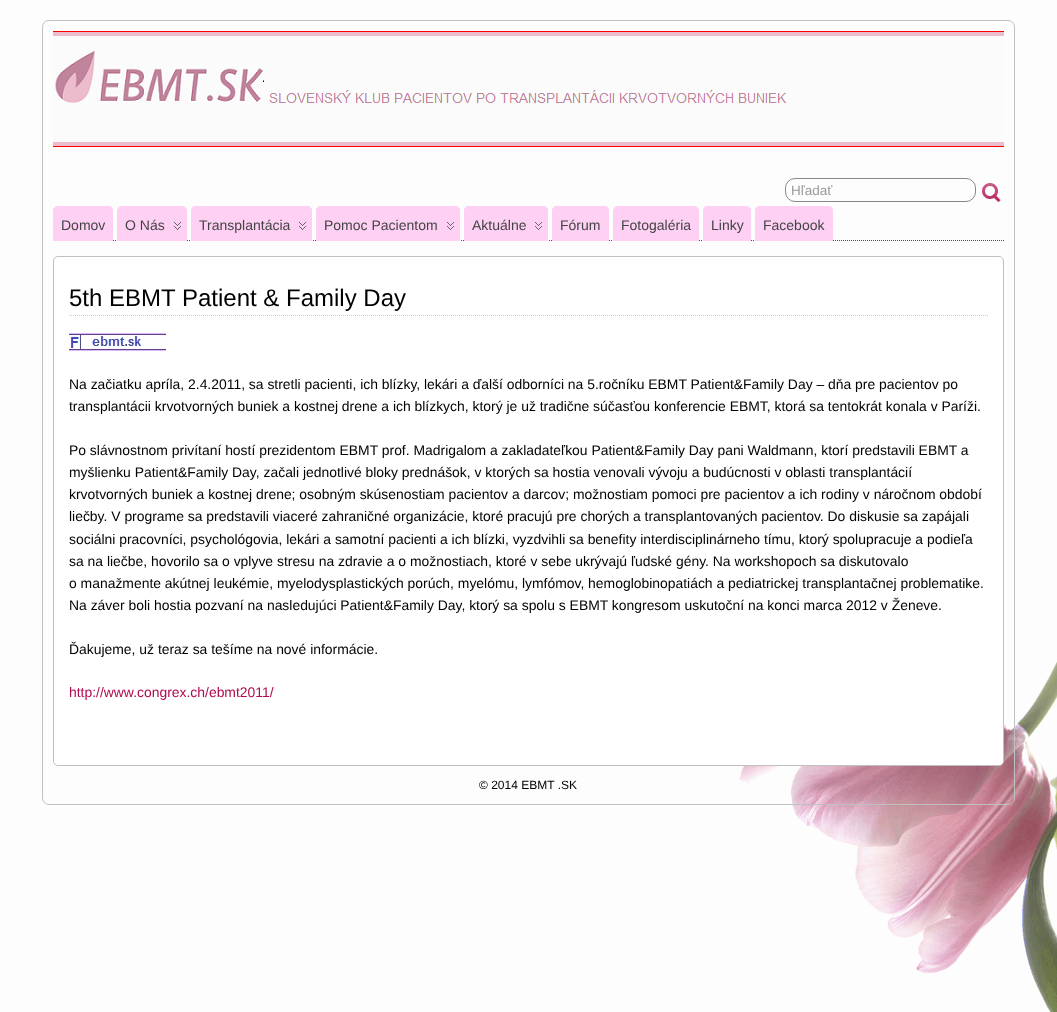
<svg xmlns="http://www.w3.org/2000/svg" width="1057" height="1012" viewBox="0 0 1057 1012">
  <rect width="100%" height="100%" fill="rgb(253,253,253)"/>
  <image x="739" y="662" width="318" height="350" href="pic1.png"/>
  <rect x="42.5" y="20.5" width="972" height="784" rx="6.5" fill="none" stroke="rgb(192,192,192)"/>
  <image x="53" y="31" width="951" height="116" href="pic2.png"/>
  <image x="55" y="50" width="732" height="53" href="pic3.png"/>
  <path d="M53 240.5H1004" fill="none" stroke="rgb(255,0,0)" stroke-dasharray="1 1"/>
  <rect x="785.5" y="178.5" width="190" height="23" rx="9.5" fill="none" stroke="rgb(136,136,136)"/>
  <text x="791" y="195" font-family="Liberation Sans" font-size="13.5" fill="rgb(153,153,153)">Hľadať</text>
  <image x="982" y="183" width="19" height="19" href="pic4.png"/>
  <image x="53" y="206" width="60" height="5" href="pic5.png"/>
  <image x="53" y="206" width="60" height="35" href="pic6.png"/>
  <text x="61" y="230" font-family="Liberation Sans" font-size="14" fill="rgb(68,68,68)">Domov</text>
  <image x="117" y="206" width="70" height="5" href="pic7.png"/>
  <image x="117" y="206" width="70" height="35" href="pic8.png"/>
  <text x="125" y="230" font-family="Liberation Sans" font-size="14" fill="rgb(68,68,68)">O Nás</text>
  <image x="174" y="222" width="7" height="8" href="pic9.png"/>
  <image x="191" y="206" width="121" height="5" href="pic10.png"/>
  <image x="191" y="206" width="121" height="35" href="pic11.png"/>
  <text x="199" y="230" font-family="Liberation Sans" font-size="14" fill="rgb(68,68,68)">Transplantácia</text>
  <image x="299" y="222" width="7" height="8" href="pic9.png"/>
  <image x="316" y="206" width="144" height="5" href="pic12.png"/>
  <image x="316" y="206" width="144" height="35" href="pic13.png"/>
  <text x="324" y="230" font-family="Liberation Sans" font-size="14" fill="rgb(68,68,68)">Pomoc Pacientom</text>
  <image x="447" y="222" width="7" height="8" href="pic9.png"/>
  <image x="464" y="206" width="84" height="5" href="pic14.png"/>
  <image x="464" y="206" width="84" height="35" href="pic15.png"/>
  <text x="472" y="230" font-family="Liberation Sans" font-size="14" fill="rgb(68,68,68)">Aktuálne</text>
  <image x="535" y="222" width="7" height="8" href="pic9.png"/>
  <image x="552" y="206" width="57" height="5" href="pic16.png"/>
  <image x="552" y="206" width="57" height="35" href="pic17.png"/>
  <text x="560" y="230" font-family="Liberation Sans" font-size="14" fill="rgb(68,68,68)">Fórum</text>
  <image x="613" y="206" width="86" height="5" href="pic18.png"/>
  <image x="613" y="206" width="86" height="35" href="pic19.png"/>
  <text x="621" y="230" font-family="Liberation Sans" font-size="14" fill="rgb(68,68,68)">Fotogaléria</text>
  <image x="703" y="206" width="48" height="5" href="pic20.png"/>
  <image x="703" y="206" width="48" height="35" href="pic21.png"/>
  <text x="711" y="230" font-family="Liberation Sans" font-size="14" fill="rgb(68,68,68)">Linky</text>
  <image x="755" y="206" width="78" height="5" href="pic22.png"/>
  <image x="755" y="206" width="78" height="35" href="pic23.png"/>
  <text x="763" y="230" font-family="Liberation Sans" font-size="14" fill="rgb(68,68,68)">Facebook</text>
  <rect x="53.5" y="256.5" width="950" height="509" rx="4.5" fill="rgb(255,255,255)" stroke="rgb(192,192,192)"/>
  <path d="M69 315.5H988" fill="none" stroke="rgb(204,204,204)" stroke-dasharray="1 1"/>
  <text x="69" y="306" font-family="Liberation Sans" font-size="24" fill="rgb(0,0,0)">5th EBMT Patient &amp; Family Day</text>
  <image x="69" y="333" width="97" height="18" href="pic24.png"/>
  <g font-family="Liberation Sans" font-size="13.92" fill="rgb(0,0,0)">
    <text>
      <tspan x="69" y="389">Na začiatku apríla, 2.4.2011, sa stretli pacienti, ich blízky, lekári a ďalší odborníci na 5.ročníku EBMT Patient&amp;Family Day – dňa pre pacientov po</tspan>
      <tspan x="69" y="411">transplantácii krvotvorných buniek a kostnej drene a ich blízkych, ktorý je už tradične súčasťou konferencie EBMT, ktorá sa tentokrát konala v Paríži.</tspan>
    </text>
    <text>
      <tspan x="69" y="455">Po slávnostnom privítaní hostí prezidentom EBMT prof. Madrigalom a zakladateľkou Patient&amp;Family Day pani Waldmann, ktorí predstavili EBMT a</tspan>
      <tspan x="69" y="477">myšlienku Patient&amp;Family Day, začali jednotlivé bloky prednášok, v ktorých sa hostia venovali vývoju a budúcnosti v oblasti transplantácií</tspan>
      <tspan x="69" y="499">krvotvorných buniek a kostnej drene; osobným skúsenostiam pacientov a darcov; možnostiam pomoci pre pacientov a ich rodiny v náročnom období</tspan>
      <tspan x="69" y="521">liečby. V programe sa predstavili viaceré zahraničné organizácie, ktoré pracujú pre chorých a transplantovaných pacientov. Do diskusie sa zapájali</tspan>
      <tspan x="69" y="544">sociálni pracovníci, psychológovia, lekári a samotní pacienti a ich blízki, vyzdvihli sa benefity interdisciplinárneho tímu, ktorý spolupracuje a podieľa</tspan>
      <tspan x="69" y="566">sa na liečbe, hovorilo sa o vplyve stresu na zdravie a o možnostiach, ktoré v sebe ukrývajú ľudské gény. Na workshopoch sa diskutovalo</tspan>
      <tspan x="69" y="588">o manažmente akútnej leukémie, myelodysplastických porúch, myelómu, lymfómov, hemoglobinopatiách a pediatrickej transplantačnej problematike.</tspan>
      <tspan x="69" y="610">Na záver boli hostia pozvaní na nasledujúci Patient&amp;Family Day, ktorý sa spolu s EBMT kongresom uskutoční na konci marca 2012 v Ženeve.</tspan>
    </text>
    <text x="69" y="654">Ďakujeme, už teraz sa tešíme na nové informácie.</text>
  </g>
  <text x="69" y="697" font-family="Liberation Sans" font-size="13.92" fill="rgb(175,10,79)">http://www.congrex.ch/ebmt2011/</text>
  <text x="479" y="789" font-family="Liberation Sans" font-size="12" fill="rgb(0,0,0)">© 2014 EBMT .SK</text>
</svg>
